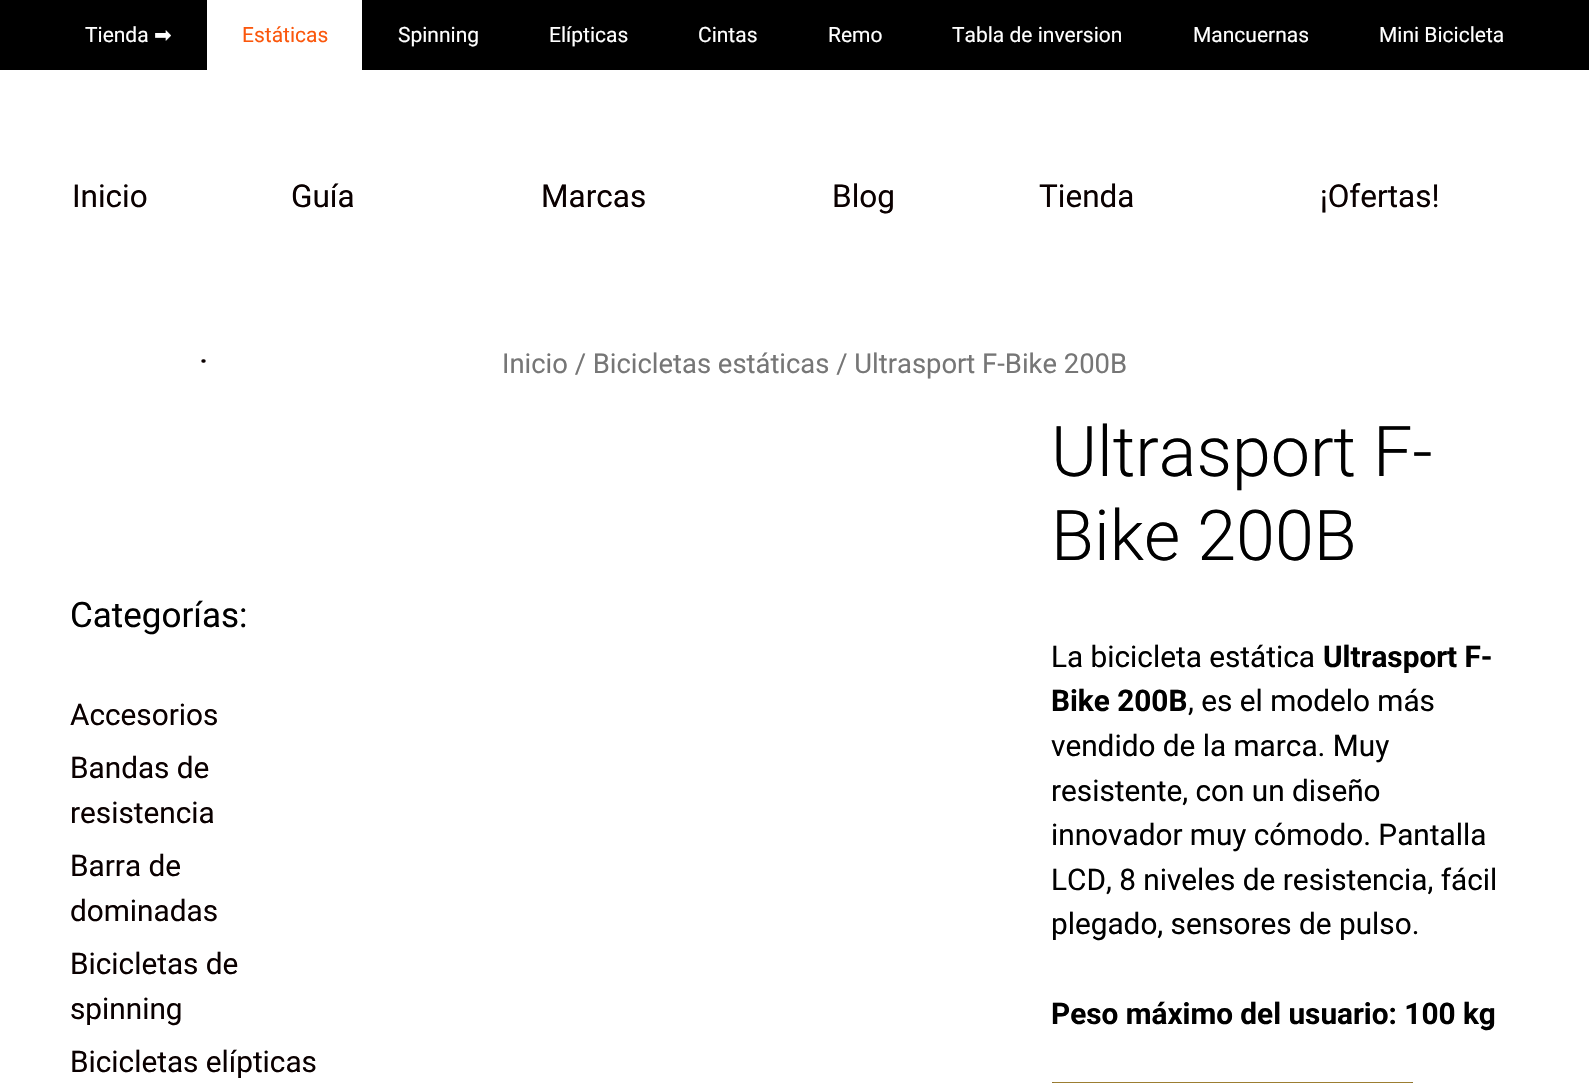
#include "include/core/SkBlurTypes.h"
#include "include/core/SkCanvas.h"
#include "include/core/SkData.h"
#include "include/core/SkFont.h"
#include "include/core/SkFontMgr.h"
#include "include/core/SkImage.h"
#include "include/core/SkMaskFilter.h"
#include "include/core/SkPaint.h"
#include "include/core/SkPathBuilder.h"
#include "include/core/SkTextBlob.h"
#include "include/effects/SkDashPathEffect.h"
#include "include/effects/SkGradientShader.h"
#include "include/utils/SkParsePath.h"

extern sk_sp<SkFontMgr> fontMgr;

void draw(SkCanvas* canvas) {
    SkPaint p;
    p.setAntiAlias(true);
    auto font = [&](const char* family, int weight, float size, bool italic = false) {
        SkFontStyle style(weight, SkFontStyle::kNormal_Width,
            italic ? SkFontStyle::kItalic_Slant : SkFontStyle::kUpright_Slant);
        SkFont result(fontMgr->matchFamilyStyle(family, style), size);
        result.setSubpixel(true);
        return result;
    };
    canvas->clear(0xFFFFFFFF);
    p.setColor(0xFF000000);
    canvas->drawRect(SkRect::MakeLTRB(0, 0, 1589, 70), p);
    auto font1 = font("Roboto", 400, 21);
    p.setColor(0xFFFFFFFF);
    canvas->drawString("Tienda", 85, 42, font1, p);
    auto font2 = font("DejaVu Sans", 400, 21);
    canvas->drawString("➡", 154, 42, font2, p);
    canvas->drawRect(SkRect::MakeLTRB(207, 0, 362, 70), p);
    p.setColor(0xFFFB570C);
    canvas->drawString("Estáticas", 242, 42, font1, p);
    p.setColor(0xFFFFFFFF);
    {
        const struct { const char* s; float x, y; } items[] = {
            {"Spinning", 398, 42},
            {"Elípticas", 549, 42},
            {"Cintas", 698, 42},
            {"Remo", 828, 42},
            {"Tabla de inversion", 952, 42},
            {"Mancuernas", 1193, 42},
            {"Mini Bicicleta", 1379, 42},
        };
        for (auto [s, x, y] : items) {
            canvas->drawString(s, x, y, font1, p);
        }
    }
    auto font3 = font("Roboto", 400, 31.5f);
    p.setColor(0xFF0A0000);
    {
        const struct { const char* s; float x, y; } items[] = {
            {"Inicio", 72, 207},
            {"Guía", 291, 207},
            {"Marcas", 541, 207},
            {"Blog", 832, 207},
            {"Tienda", 1039, 207},
            {"¡Ofertas!", 1320, 207},
        };
        for (auto [s, x, y] : items) {
            canvas->drawString(s, x, y, font3, p);
        }
    }
    p.setStyle(SkPaint::kStroke_Style);
    p.setStrokeWidth(3.4f);
    p.setStrokeCap(SkPaint::kRound_Cap);
    canvas->drawPath(SkPathBuilder().moveTo(203, 361).lineTo(204, 361).detach(), p);
    auto font4 = font("Roboto", 400, 35);
    p.setStyle(SkPaint::kFill_Style);
    p.setColor(0xFF000000);
    canvas->drawString("Categorías:", 70, 627, font4, p);
    auto font5 = font("Roboto", 400, 29.75f);
    p.setColor(0xFF0A0000);
    {
        const struct { const char* s; float x, y; } items[] = {
            {"Accesorios", 70, 725},
            {"Bandas de", 70, 778},
            {"resistencia", 70, 823},
            {"Barra de", 70, 876},
            {"dominadas", 70, 921},
            {"Bicicletas de", 70, 974},
            {"spinning", 70, 1019},
            {"Bicicletas elípticas", 70, 1072},
        };
        for (auto [s, x, y] : items) {
            canvas->drawString(s, x, y, font5, p);
        }
    }
    auto font6 = font("Roboto", 400, 27.4f);
    p.setColor(0xFF767676);
    canvas->drawString("Inicio / Bicicletas estáticas / Ultrasport F-Bike 200B", 502, 373, font6, p);
    auto font7 = font("Roboto", 300, 70);
    p.setColor(0xFF000000);
    canvas->drawString("Ultrasport F-", 1051, 476, font7, p);
    canvas->drawString("Bike 200B", 1051, 560, font7, p);
    canvas->drawString("La bicicleta estática", 1051, 667, font5, p);
    auto font8 = font("Roboto", 700, 29.75f);
    canvas->drawString("Ultrasport F-", 1323, 667, font8, p);
    canvas->drawString("Bike 200B", 1051, 711, font8, p);
    {
        const struct { const char* s; float x, y; } items[] = {
            {", es el modelo más", 1188, 711},
            {"vendido de la marca. Muy", 1051, 756},
            {"resistente, con un diseño", 1051, 801},
            {"innovador muy cómodo. Pantalla", 1051, 845},
            {"LCD, 8 niveles de resistencia, fácil", 1051, 890},
            {"plegado, sensores de pulso.", 1051, 934},
        };
        for (auto [s, x, y] : items) {
            canvas->drawString(s, x, y, font5, p);
        }
    }
    canvas->drawString("Peso máximo del usuario: 100 kg", 1051, 1024, font8, p);
    {
        const struct { float l, t, r, b; SkColor color; } items[] = {
            {1052, 1082, 1412, 1083, 0xFF9C7E31},
            {1411, 1082, 1413, 1083, 0xFF90742D},
            {1052, 1082, 1054, 1083, 0xFF90742D},
        };
        for (auto [l, t, r, b, color] : items) {
            p.setColor(color);
            canvas->drawRect(SkRect::MakeLTRB(l, t, r, b), p);
        }
    }
}
